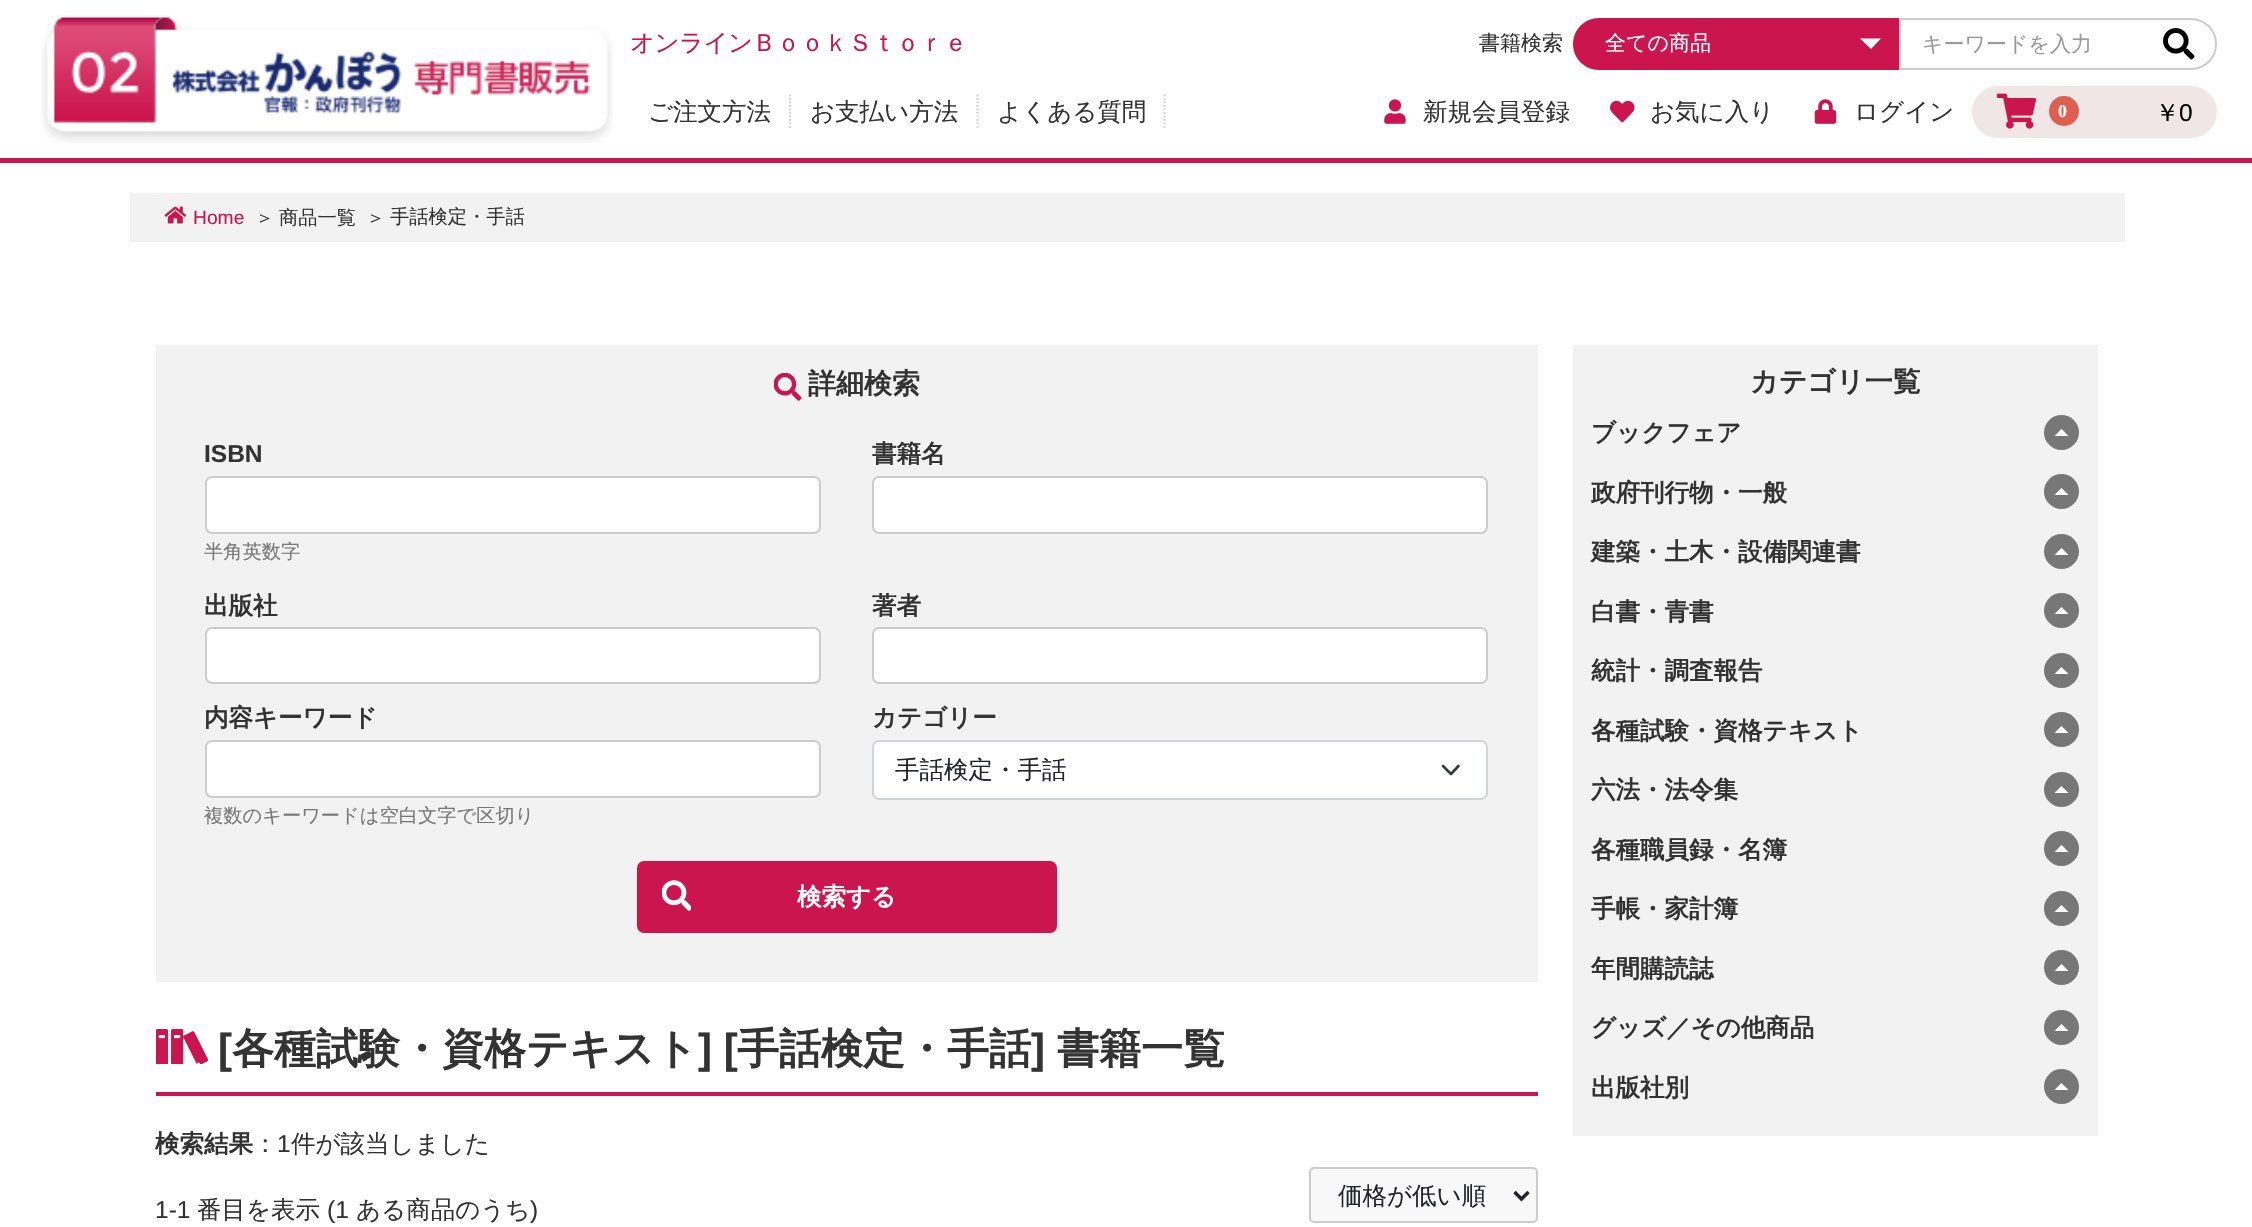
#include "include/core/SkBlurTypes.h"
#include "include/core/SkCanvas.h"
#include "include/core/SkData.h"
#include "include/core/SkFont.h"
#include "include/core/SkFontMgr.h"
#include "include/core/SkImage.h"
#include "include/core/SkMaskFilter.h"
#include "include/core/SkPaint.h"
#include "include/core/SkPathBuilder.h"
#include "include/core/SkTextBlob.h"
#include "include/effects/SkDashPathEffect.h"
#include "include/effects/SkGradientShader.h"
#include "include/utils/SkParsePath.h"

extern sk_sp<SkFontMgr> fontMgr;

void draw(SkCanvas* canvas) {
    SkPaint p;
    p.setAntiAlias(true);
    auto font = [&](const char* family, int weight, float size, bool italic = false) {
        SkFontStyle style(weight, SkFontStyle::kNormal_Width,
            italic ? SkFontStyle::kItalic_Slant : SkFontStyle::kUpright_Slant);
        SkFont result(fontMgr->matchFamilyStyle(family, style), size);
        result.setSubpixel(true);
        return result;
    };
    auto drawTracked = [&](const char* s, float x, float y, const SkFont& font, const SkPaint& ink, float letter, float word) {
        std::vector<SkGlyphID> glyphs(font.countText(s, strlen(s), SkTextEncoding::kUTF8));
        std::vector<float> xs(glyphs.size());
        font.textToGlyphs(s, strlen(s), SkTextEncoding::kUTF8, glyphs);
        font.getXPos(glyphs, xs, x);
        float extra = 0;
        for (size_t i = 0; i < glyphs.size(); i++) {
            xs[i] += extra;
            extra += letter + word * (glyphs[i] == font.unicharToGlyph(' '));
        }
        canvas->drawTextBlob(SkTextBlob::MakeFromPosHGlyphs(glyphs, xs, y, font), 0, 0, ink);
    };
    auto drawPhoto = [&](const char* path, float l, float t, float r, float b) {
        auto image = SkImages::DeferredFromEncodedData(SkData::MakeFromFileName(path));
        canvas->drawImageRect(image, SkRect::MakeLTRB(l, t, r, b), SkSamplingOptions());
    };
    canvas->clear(0xFFFFFFFF);
    p.setColor(0xFFCB154E);
    canvas->drawRect(SkRect::MakeLTRB(0, 158, 2252, 163), p);
    drawPhoto("media/1.png", 41, 15, 613, 143);
    auto font1 = font("WenQuanYi Zen Hei", 500, 21);
    p.setColor(0xFF333333);
    canvas->drawString("書籍検索", 1479, 50, font1, p);
    p.setColor(0xFFCB154E);
    canvas->drawPath(SkPathBuilder().moveTo(1599, 18).lineTo(1899, 18).lineTo(1899, 70).lineTo(1599, 70).cubicTo(1584.5f, 70, 1573, 58.5f, 1573, 44).cubicTo(1573, 29.5f, 1584.5f, 18, 1599, 18).close().detach(), p);
    p.setColor(0xFFFFFFFF);
    canvas->drawString("全ての商品", 1605, 50, font1, p);
    canvas->drawPath(SkPathBuilder().moveTo(1860, 38.5f).lineTo(1881, 38.5f).lineTo(1871, 49).close().detach(), p);
    p.setStyle(SkPaint::kStroke_Style);
    p.setStrokeWidth(2);
    p.setColor(0xFFCCCCCC);
    canvas->drawPath(SkPathBuilder().moveTo(1900, 19).lineTo(2191, 19).cubicTo(2205, 19, 2216, 30, 2216, 44).cubicTo(2216, 58, 2205, 69, 2191, 69).lineTo(1900, 69).close().detach(), p);
    p.setStyle(SkPaint::kFill_Style);
    p.setColor(0xFF999999);
    canvas->drawString("キーワードを入力", 1922, 51, font1, p);
    drawPhoto("media/2.png", 2163, 28, 2195, 60);
    p.setStyle(SkPaint::kStroke_Style);
    p.setStrokeWidth(1.8f);
    p.setColor(0xFFCCCCCC);
    p.setPathEffect(SkDashPathEffect::Make({{1.75f, 1.75f}}, 0));
    canvas->drawPath(SkPathBuilder().moveTo(790, 94.5f).lineTo(790, 129.5f).detach(), p);
    p.setPathEffect(nullptr);
    auto font2 = font("WenQuanYi Zen Hei", 500, 24.5f);
    p.setStyle(SkPaint::kFill_Style);
    p.setColor(0xFF333333);
    canvas->drawString("ご注文方法", 648, 120, font2, p);
    p.setStyle(SkPaint::kStroke_Style);
    p.setColor(0xFFCCCCCC);
    p.setPathEffect(SkDashPathEffect::Make({{1.75f, 1.75f}}, 0));
    canvas->drawPath(SkPathBuilder().moveTo(977.5f, 94.5f).lineTo(977.5f, 129.5f).detach(), p);
    p.setPathEffect(nullptr);
    p.setStyle(SkPaint::kFill_Style);
    p.setColor(0xFF333333);
    canvas->drawString("お支払い方法", 810, 120, font2, p);
    p.setStyle(SkPaint::kStroke_Style);
    p.setColor(0xFFCCCCCC);
    p.setPathEffect(SkDashPathEffect::Make({{1.75f, 1.75f}}, 0));
    canvas->drawPath(SkPathBuilder().moveTo(1164.5f, 94.5f).lineTo(1164.5f, 129.5f).detach(), p);
    p.setPathEffect(nullptr);
    p.setStyle(SkPaint::kFill_Style);
    p.setColor(0xFF333333);
    canvas->drawString("よくある質問", 997, 120, font2, p);
    drawPhoto("media/3.png", 1384, 99, 1406, 124);
    canvas->drawString("新規会員登録", 1423, 120, font2, p);
    drawPhoto("media/4.png", 1610, 100, 1635, 123);
    canvas->drawString("お気に入り", 1650, 120, font2, p);
    drawPhoto("media/5.png", 1814, 99, 1837, 124);
    canvas->drawString("ログイン", 1854, 120, font2, p);
    p.setColor(0xFFF0E6E6);
    canvas->drawRoundRect(SkRect::MakeLTRB(1972, 86, 2217, 138), 26, 26, p);
    drawPhoto("media/6.png", 1996, 93, 2037, 129);
    p.setColor(0xFFDE5E51);
    canvas->drawCircle(2064, 111, 15, p);
    auto font3 = font("Liberation Serif", 700, 18);
    p.setColor(0xFFFFFFFF);
    canvas->drawString("0", 2058, 117, font3, p);
    p.setColor(0xFF000000);
    canvas->drawString("￥", 2155, 121, font2, p);
    auto font4 = font("Liberation Sans", 400, 24.5f);
    canvas->drawString("0", 2179, 121, font4, p);
    p.setColor(0xFFCB154E);
    drawTracked("オンラインＢｏｏｋＳｔｏｒｅ", 630, 51, font2, p, -0.6f, 0);
    p.setColor(0xFFF2F2F2);
    canvas->drawRect(SkRect::MakeLTRB(130, 193, 2125, 242), p);
    drawPhoto("media/7.png", 164, 206, 187, 224);
    auto font5 = font("Liberation Sans", 400, 19.25f);
    p.setColor(0xFFCB154E);
    canvas->drawString("Home", 193, 224, font5, p);
    auto font6 = font("WenQuanYi Zen Hei", 500, 19.25f);
    p.setColor(0xFF333333);
    {
        const struct { const char* s; float x, y; } items[] = {
            {"＞", 255, 224},
            {"商品一覧", 279, 224},
            {"＞", 366, 224},
            {"手話検定・手話", 390, 223},
        };
        for (auto [s, x, y] : items) {
            canvas->drawString(s, x, y, font6, p);
        }
    }
    p.setColor(0xFFF2F2F2);
    canvas->drawRect(SkRect::MakeLTRB(156, 345, 1538, 982), p);
    drawPhoto("media/8.png", 774, 373, 802, 401);
    auto font7 = font("WenQuanYi Zen Hei", 700, 28);
    p.setColor(0xFF333333);
    canvas->drawString("詳細検索", 808, 393, font7, p);
    auto font8 = font("Liberation Sans", 700, 24.5f);
    canvas->drawString("ISBN", 204, 462, font8, p);
    p.setColor(0xFFFFFFFF);
    canvas->drawRoundRect(SkRect::MakeLTRB(206, 477, 820, 533), 6, 6, p);
    p.setStyle(SkPaint::kStroke_Style);
    p.setStrokeWidth(2);
    p.setColor(0xFFCCCCCC);
    canvas->drawRoundRect(SkRect::MakeLTRB(206, 477, 820, 533), 6, 6, p);
    p.setStyle(SkPaint::kFill_Style);
    p.setColor(0xFF777777);
    canvas->drawString("半角英数字", 204, 558, font6, p);
    auto font9 = font("WenQuanYi Zen Hei", 700, 24.5f);
    p.setColor(0xFF333333);
    canvas->drawString("書籍名", 872, 462, font9, p);
    p.setColor(0xFFFFFFFF);
    canvas->drawRoundRect(SkRect::MakeLTRB(873, 477, 1487, 533), 6, 6, p);
    p.setStyle(SkPaint::kStroke_Style);
    p.setColor(0xFFCCCCCC);
    canvas->drawRoundRect(SkRect::MakeLTRB(873, 477, 1487, 533), 6, 6, p);
    p.setStyle(SkPaint::kFill_Style);
    p.setColor(0xFF333333);
    canvas->drawString("出版社", 204, 614, font9, p);
    p.setColor(0xFFFFFFFF);
    canvas->drawRoundRect(SkRect::MakeLTRB(206, 628, 820, 683), 6, 6, p);
    p.setStyle(SkPaint::kStroke_Style);
    p.setColor(0xFFCCCCCC);
    canvas->drawRoundRect(SkRect::MakeLTRB(206, 628, 820, 683), 6, 6, p);
    p.setStyle(SkPaint::kFill_Style);
    p.setColor(0xFF333333);
    canvas->drawString("著者", 872, 614, font9, p);
    p.setColor(0xFFFFFFFF);
    canvas->drawRoundRect(SkRect::MakeLTRB(873, 628, 1487, 683), 6, 6, p);
    p.setStyle(SkPaint::kStroke_Style);
    p.setColor(0xFFCCCCCC);
    canvas->drawRoundRect(SkRect::MakeLTRB(873, 628, 1487, 683), 6, 6, p);
    p.setStyle(SkPaint::kFill_Style);
    p.setColor(0xFF333333);
    canvas->drawString("内容キーワード", 204, 726, font9, p);
    p.setColor(0xFFFFFFFF);
    canvas->drawRoundRect(SkRect::MakeLTRB(206, 741, 820, 797), 6, 6, p);
    p.setStyle(SkPaint::kStroke_Style);
    p.setColor(0xFFCCCCCC);
    canvas->drawRoundRect(SkRect::MakeLTRB(206, 741, 820, 797), 6, 6, p);
    p.setStyle(SkPaint::kFill_Style);
    p.setColor(0xFF777777);
    canvas->drawString("複数のキーワードは空白文字で区切り", 204, 822, font6, p);
    p.setColor(0xFF333333);
    canvas->drawString("カテゴリー", 872, 726, font9, p);
    p.setColor(0xFFFFFFFF);
    canvas->drawRoundRect(SkRect::MakeLTRB(872, 740, 1488, 800), 7, 7, p);
    p.setStyle(SkPaint::kStroke_Style);
    p.setStrokeWidth(2.6f);
    p.setStrokeCap(SkPaint::kRound_Cap);
    p.setStrokeJoin(SkPaint::kRound_Join);
    p.setColor(0xFF343A40);
    canvas->drawPath(SkPathBuilder().moveTo(1443, 766).lineTo(1451, 774).lineTo(1458.5f, 766).detach(), p);
    p.setStrokeWidth(2);
    p.setStrokeCap(SkPaint::kButt_Cap);
    p.setStrokeJoin(SkPaint::kMiter_Join);
    p.setColor(0xFFCED4DA);
    canvas->drawRoundRect(SkRect::MakeLTRB(873, 741, 1487, 799), 6, 6, p);
    p.setStyle(SkPaint::kFill_Style);
    p.setColor(0xFF212529);
    canvas->drawString("手話検定・手話", 895, 778, font2, p);
    p.setColor(0xFFCB154E);
    canvas->drawRoundRect(SkRect::MakeLTRB(637, 861, 1057, 933), 7, 7, p);
    drawPhoto("media/9.png", 662, 880, 691, 911);
    p.setColor(0xFFFFFFFF);
    canvas->drawString("検索する", 797, 905, font9, p);
    p.setColor(0xFFCB154E);
    canvas->drawRect(SkRect::MakeLTRB(156, 1092, 1538, 1096), p);
    drawPhoto("media/10.png", 156, 1029, 208, 1064);
    auto font10 = font("Liberation Sans", 700, 42);
    p.setColor(0xFF333333);
    canvas->drawString("[", 218, 1063, font10, p);
    auto font11 = font("WenQuanYi Zen Hei", 700, 42);
    canvas->drawString("各種試験・資格テキスト", 232, 1063, font11, p);
    canvas->drawString("] [", 698, 1063, font10, p);
    canvas->drawString("手話検定・手話", 737, 1063, font11, p);
    canvas->drawString("]", 1031, 1063, font10, p);
    canvas->drawString("書籍一覧", 1057, 1063, font11, p);
    canvas->drawString("検索結果", 155, 1152, font9, p);
    canvas->drawString("：", 253, 1152, font2, p);
    canvas->drawString("1", 277, 1152, font4, p);
    canvas->drawString("件が該当しました", 291, 1152, font2, p);
    canvas->drawString("1-1", 155, 1218, font4, p);
    canvas->drawString("番目を表示", 197, 1218, font2, p);
    canvas->drawString("(1", 327, 1218, font4, p);
    canvas->drawString("ある商品のうち", 356, 1218, font2, p);
    canvas->drawString(")", 530, 1218, font4, p);
    p.setColor(0xFFF8F8F8);
    canvas->drawRoundRect(SkRect::MakeLTRB(1310, 1168, 1537, 1222), 4, 4, p);
    p.setStyle(SkPaint::kStroke_Style);
    p.setColor(0xFFCCCCCC);
    canvas->drawRoundRect(SkRect::MakeLTRB(1310, 1168, 1537, 1222), 4, 4, p);
    p.setStrokeWidth(3.5f);
    p.setColor(0xFF212529);
    canvas->drawPath(SkPathBuilder().moveTo(1514.5f, 1192).lineTo(1521.5f, 1199).lineTo(1528.5f, 1192).detach(), p);
    p.setStyle(SkPaint::kFill_Style);
    canvas->drawString("価格が低い順", 1338, 1204, font2, p);
    p.setColor(0xFFF2F2F2);
    canvas->drawRect(SkRect::MakeLTRB(1573, 345, 2098, 1136), p);
    p.setColor(0xFF333333);
    canvas->drawString("カテゴリ一覧", 1750, 391, font7, p);
    canvas->drawString("ブックフェア", 1591, 441, font9, p);
    p.setColor(0xFF777777);
    canvas->drawCircle(2061.5f, 432.5f, 17.5f, p);
    p.setColor(0xFFFFFFFF);
    canvas->drawPath(SkPathBuilder().moveTo(2068.5f, 436).lineTo(2054.5f, 436).lineTo(2061.5f, 429).close().detach(), p);
    p.setColor(0xFF333333);
    canvas->drawString("政府刊行物・一般", 1591, 501, font9, p);
    p.setColor(0xFF777777);
    canvas->drawCircle(2061.5f, 491.5f, 17.5f, p);
    p.setColor(0xFFFFFFFF);
    canvas->drawPath(SkPathBuilder().moveTo(2068.5f, 495).lineTo(2054.5f, 495).lineTo(2061.5f, 488).close().detach(), p);
    p.setColor(0xFF333333);
    canvas->drawString("建築・土木・設備関連書", 1591, 560, font9, p);
    p.setColor(0xFF777777);
    canvas->drawCircle(2061.5f, 551.5f, 17.5f, p);
    p.setColor(0xFFFFFFFF);
    canvas->drawPath(SkPathBuilder().moveTo(2068.5f, 555).lineTo(2054.5f, 555).lineTo(2061.5f, 548).close().detach(), p);
    p.setColor(0xFF333333);
    canvas->drawString("白書・青書", 1591, 620, font9, p);
    p.setColor(0xFF777777);
    canvas->drawCircle(2061.5f, 610.5f, 17.5f, p);
    p.setColor(0xFFFFFFFF);
    canvas->drawPath(SkPathBuilder().moveTo(2068.5f, 614).lineTo(2054.5f, 614).lineTo(2061.5f, 607).close().detach(), p);
    p.setColor(0xFF333333);
    canvas->drawString("統計・調査報告", 1591, 679, font9, p);
    p.setColor(0xFF777777);
    canvas->drawCircle(2061.5f, 670.5f, 17.5f, p);
    p.setColor(0xFFFFFFFF);
    canvas->drawPath(SkPathBuilder().moveTo(2068.5f, 674).lineTo(2054.5f, 674).lineTo(2061.5f, 667).close().detach(), p);
    p.setColor(0xFF333333);
    canvas->drawString("各種試験・資格テキスト", 1591, 739, font9, p);
    p.setColor(0xFF777777);
    canvas->drawCircle(2061.5f, 729.5f, 17.5f, p);
    p.setColor(0xFFFFFFFF);
    canvas->drawPath(SkPathBuilder().moveTo(2068.5f, 733).lineTo(2054.5f, 733).lineTo(2061.5f, 726).close().detach(), p);
    p.setColor(0xFF333333);
    canvas->drawString("六法・法令集", 1591, 798, font9, p);
    p.setColor(0xFF777777);
    canvas->drawCircle(2061.5f, 789.5f, 17.5f, p);
    p.setColor(0xFFFFFFFF);
    canvas->drawPath(SkPathBuilder().moveTo(2068.5f, 793).lineTo(2054.5f, 793).lineTo(2061.5f, 786).close().detach(), p);
    p.setColor(0xFF333333);
    canvas->drawString("各種職員録・名簿", 1591, 858, font9, p);
    p.setColor(0xFF777777);
    canvas->drawCircle(2061.5f, 848.5f, 17.5f, p);
    p.setColor(0xFFFFFFFF);
    canvas->drawPath(SkPathBuilder().moveTo(2068.5f, 852).lineTo(2054.5f, 852).lineTo(2061.5f, 845).close().detach(), p);
    p.setColor(0xFF333333);
    canvas->drawString("手帳・家計簿", 1591, 917, font9, p);
    p.setColor(0xFF777777);
    canvas->drawCircle(2061.5f, 908.5f, 17.5f, p);
    p.setColor(0xFFFFFFFF);
    canvas->drawPath(SkPathBuilder().moveTo(2068.5f, 912).lineTo(2054.5f, 912).lineTo(2061.5f, 905).close().detach(), p);
    p.setColor(0xFF333333);
    canvas->drawString("年間購読誌", 1591, 977, font9, p);
    p.setColor(0xFF777777);
    canvas->drawCircle(2061.5f, 967.5f, 17.5f, p);
    p.setColor(0xFFFFFFFF);
    canvas->drawPath(SkPathBuilder().moveTo(2068.5f, 971).lineTo(2054.5f, 971).lineTo(2061.5f, 964).close().detach(), p);
    p.setColor(0xFF333333);
    canvas->drawString("グッズ／その他商品", 1591, 1036, font9, p);
    p.setColor(0xFF777777);
    canvas->drawCircle(2061.5f, 1027.5f, 17.5f, p);
    p.setColor(0xFFFFFFFF);
    canvas->drawPath(SkPathBuilder().moveTo(2068.5f, 1031).lineTo(2054.5f, 1031).lineTo(2061.5f, 1024).close().detach(), p);
    p.setColor(0xFF333333);
    canvas->drawString("出版社別", 1591, 1096, font9, p);
    p.setColor(0xFF777777);
    canvas->drawCircle(2061.5f, 1086.5f, 17.5f, p);
    p.setColor(0xFFFFFFFF);
    canvas->drawPath(SkPathBuilder().moveTo(2068.5f, 1090).lineTo(2054.5f, 1090).lineTo(2061.5f, 1083).close().detach(), p);
}
